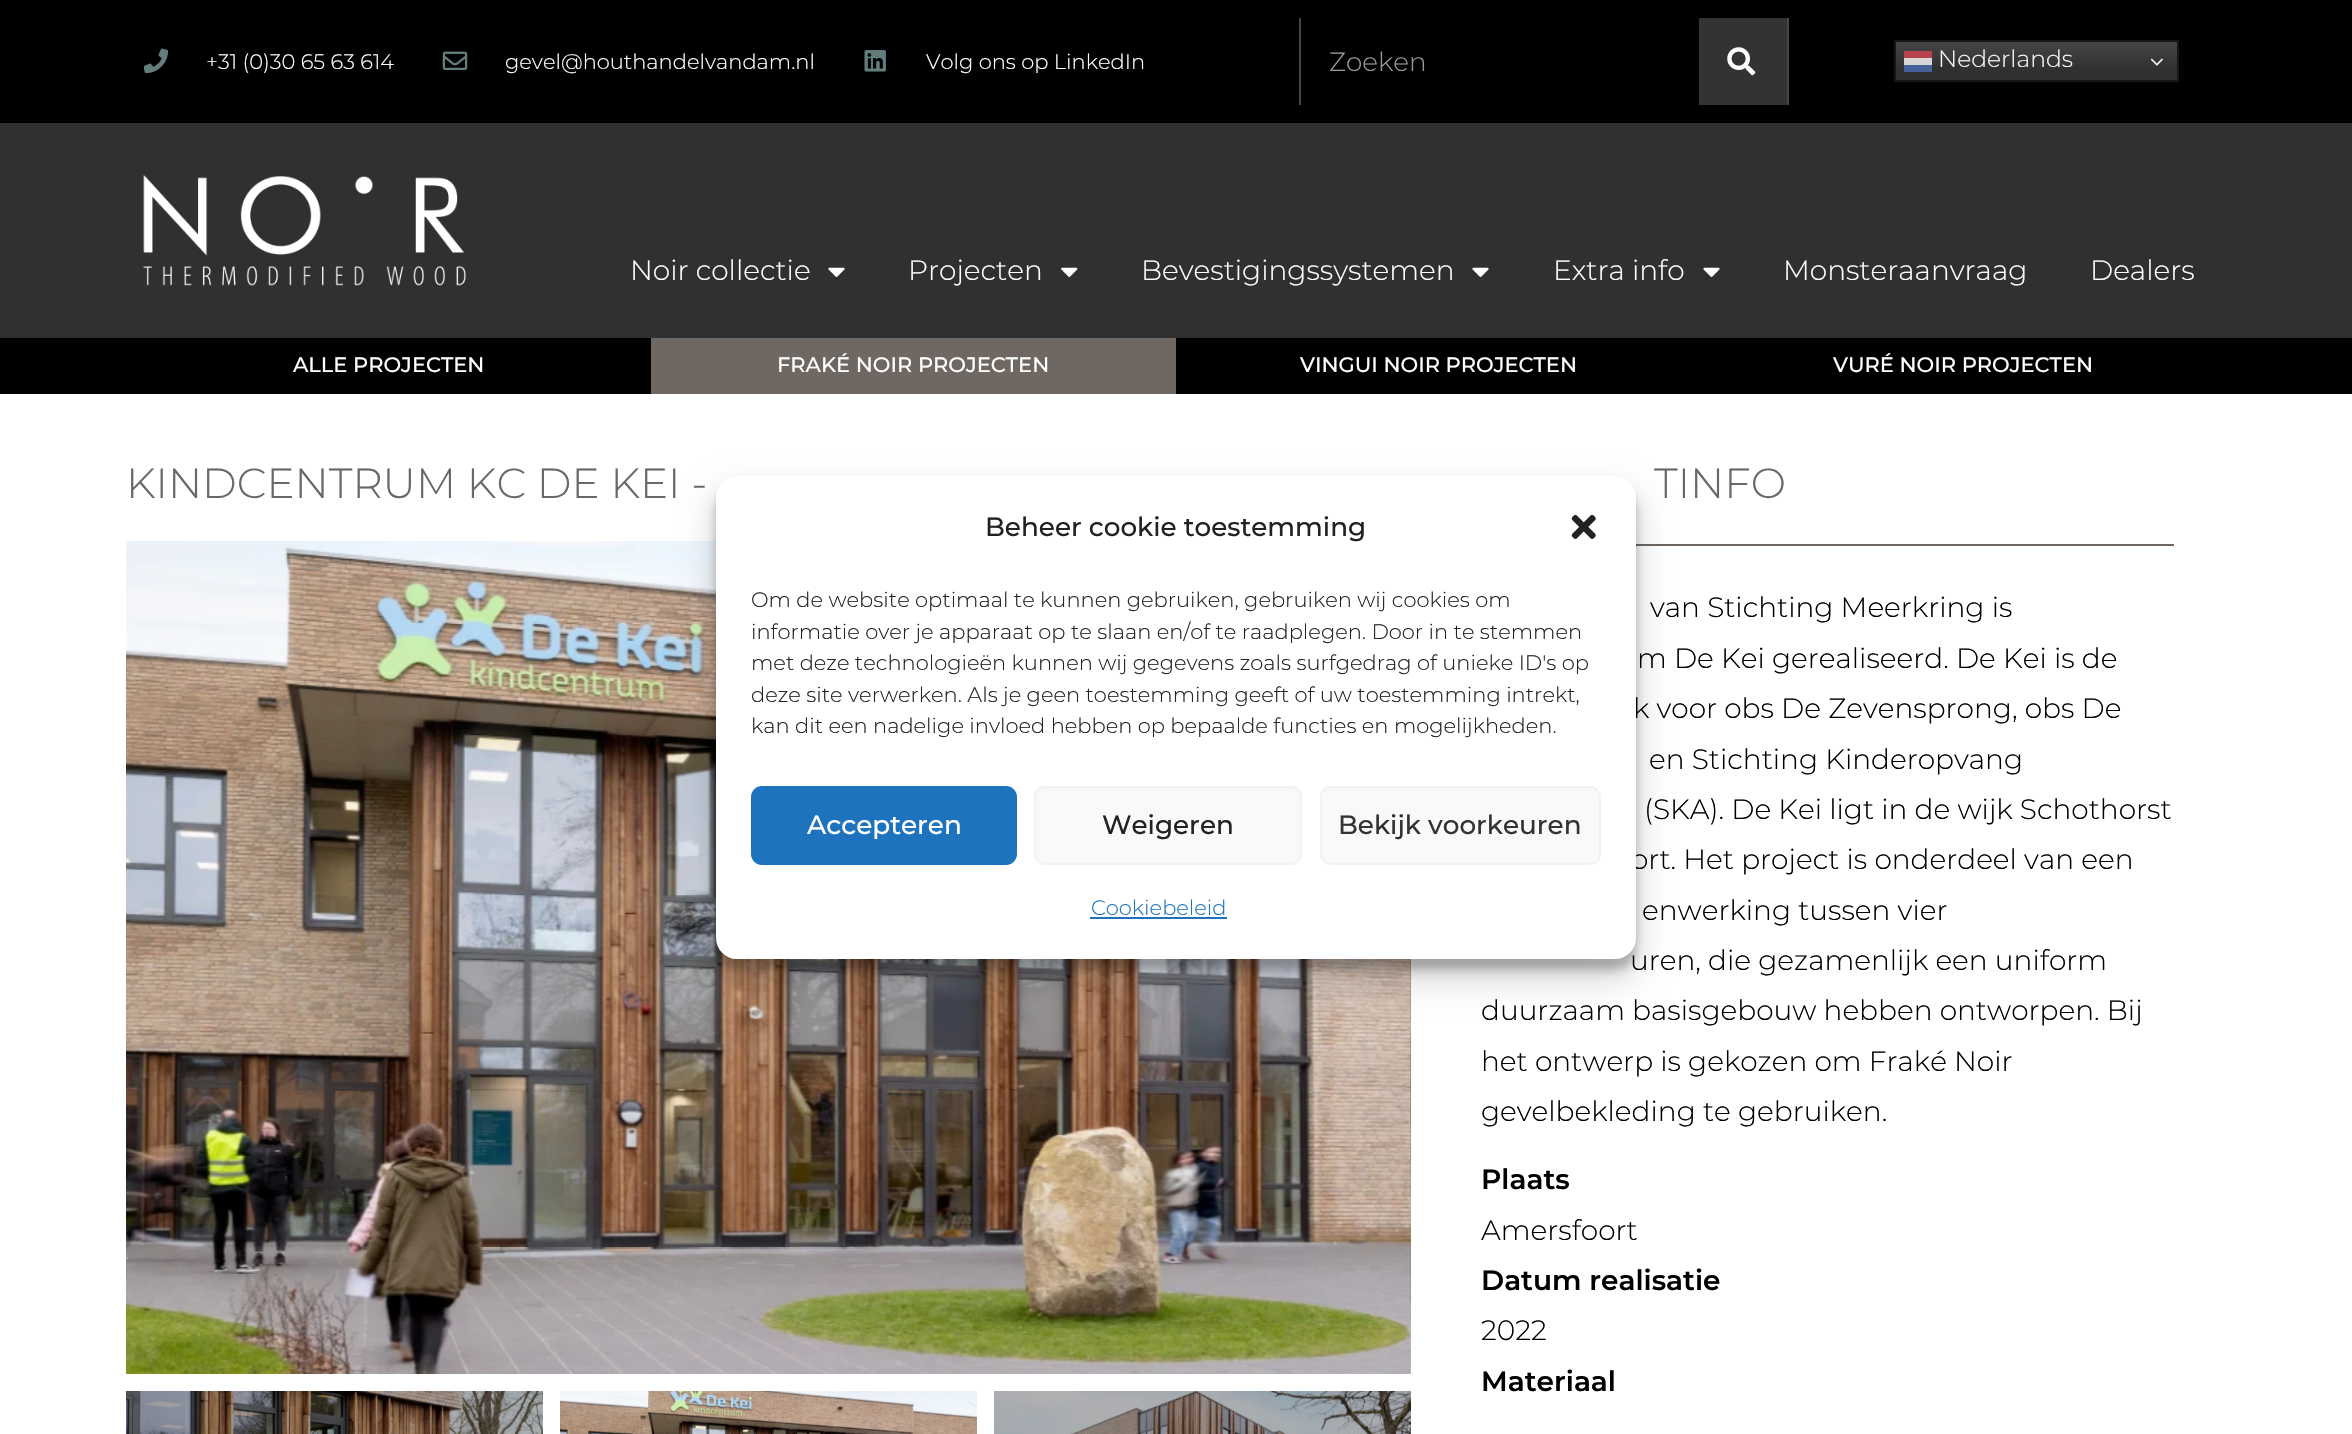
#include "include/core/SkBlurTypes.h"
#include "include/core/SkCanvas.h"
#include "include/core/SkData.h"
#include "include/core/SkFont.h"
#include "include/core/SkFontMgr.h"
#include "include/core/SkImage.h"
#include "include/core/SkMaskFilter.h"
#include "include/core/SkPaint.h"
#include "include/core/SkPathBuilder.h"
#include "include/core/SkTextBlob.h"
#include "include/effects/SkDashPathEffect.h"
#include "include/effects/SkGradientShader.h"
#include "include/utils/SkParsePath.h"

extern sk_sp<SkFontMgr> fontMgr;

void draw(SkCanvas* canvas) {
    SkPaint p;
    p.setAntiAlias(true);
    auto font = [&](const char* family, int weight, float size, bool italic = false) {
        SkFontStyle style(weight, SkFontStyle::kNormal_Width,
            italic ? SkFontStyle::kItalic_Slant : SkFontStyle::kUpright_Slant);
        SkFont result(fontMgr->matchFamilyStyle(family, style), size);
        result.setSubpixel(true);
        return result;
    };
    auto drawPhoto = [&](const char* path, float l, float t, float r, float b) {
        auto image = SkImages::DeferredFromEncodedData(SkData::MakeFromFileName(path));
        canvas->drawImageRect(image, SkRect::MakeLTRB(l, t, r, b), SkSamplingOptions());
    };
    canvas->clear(0xFFFFFFFF);
    p.setColor(0xFF303030);
    canvas->drawRect(SkRect::MakeLTRB(0, 123, 2352, 338), p);
    p.setColor(0xFF000000);
    canvas->drawRect(SkRect::MakeLTRB(0, 0, 2352, 123), p);
    drawPhoto("media/1.png", 144, 48, 168, 73);
    auto font1 = font("Montserrat", 300, 21);
    p.setColor(0xFFFFFFFF);
    canvas->drawString("+31 (0)30 65 63 614", 206, 69, font1, p);
    drawPhoto("media/2.png", 442, 51, 468, 70);
    canvas->drawString("gevel@houthandelvandam.nl", 505, 69, font1, p);
    drawPhoto("media/3.png", 864, 50, 886, 72);
    canvas->drawString("Volg ons op LinkedIn", 926, 69, font1, p);
    p.setColor(0xFF454545);
    canvas->drawRect(SkRect::MakeLTRB(1787, 18, 1789, 105), p);
    canvas->drawRect(SkRect::MakeLTRB(1299, 18, 1301, 105), p);
    auto font2 = font("Montserrat", 300, 26.25f);
    p.setColor(0xFF999999);
    canvas->drawString("Zoeken", 1329, 71, font2, p);
    p.setColor(0xFF333333);
    canvas->drawRect(SkRect::MakeLTRB(1699, 18, 1787, 105), p);
    drawPhoto("media/4.png", 1727, 47, 1756, 76);
    {
        const SkColor colors[] = {0xFF474747, 0xFF303030};
        const float stops[] = {0, 0.7f};
        const SkPoint ends[] = {{2036, 40}, {2036, 82}};
        p.setShader(SkGradientShader::MakeLinear(ends, colors, stops, 2, SkTileMode::kClamp));
        p.setAlpha(255);
    }
    canvas->drawRect(SkRect::MakeLTRB(1896, 42, 2177, 80), p);
    {
        const SkColor colors[] = {0xFFDADADA, 0xFFD6D6D6};
        const float stops[] = {0, 0.7f};
        const SkPoint ends[] = {{2036, 40}, {2036, 82}};
        p.setShader(SkGradientShader::MakeLinear(ends, colors, stops, 2, SkTileMode::kClamp));
        p.setAlpha(255);
    }
    canvas->drawRect(SkRect::MakeLTRB(1904, 58, 1932, 65), p);
    p.setStyle(SkPaint::kStroke_Style);
    p.setStrokeWidth(2);
    p.setShader(nullptr);
    p.setColor(0xFF161616);
    canvas->drawRect(SkRect::MakeLTRB(1895, 41, 2178, 81), p);
    p.setStyle(SkPaint::kFill_Style);
    p.setColor(0xFFB6424B);
    canvas->drawRect(SkRect::MakeLTRB(1904, 51, 1932, 58), p);
    auto font3 = font("Montserrat", 300, 23.5f);
    p.setColor(0xFFF7F7F7);
    canvas->drawString("Nederlands", 1938, 67, font3, p);
    drawPhoto("media/5.png", 2151, 58, 2163, 66);
    p.setColor(0xFF45639A);
    canvas->drawRect(SkRect::MakeLTRB(1904, 65, 1932, 72), p);
    drawPhoto("media/6.png", 143, 175, 466, 286);
    auto font4 = font("Montserrat", 300, 28);
    p.setColor(0xFFFFFFFF);
    canvas->drawString("Noir collectie", 630, 280, font4, p);
    drawPhoto("media/7.png", 828, 267, 845, 277);
    canvas->drawString("Projecten", 908, 280, font4, p);
    drawPhoto("media/8.png", 1061, 267, 1078, 277);
    canvas->drawString("Bevestigingssystemen", 1141, 280, font4, p);
    drawPhoto("media/7.png", 1472, 267, 1489, 277);
    canvas->drawString("Extra info", 1553, 280, font4, p);
    drawPhoto("media/7.png", 1703, 267, 1720, 277);
    canvas->drawString("Monsteraanvraag", 1783, 280, font4, p);
    canvas->drawString("Dealers", 2090, 280, font4, p);
    p.setColor(0xFF000000);
    canvas->drawRect(SkRect::MakeLTRB(0, 338, 2352, 394), p);
    auto font5 = font("Montserrat", 500, 21);
    p.setColor(0xFFFFFFFF);
    canvas->drawString("ALLE PROJECTEN", 293, 372, font5, p);
    p.setColor(0xFF6F6761);
    canvas->drawRect(SkRect::MakeLTRB(651, 338, 1176, 394), p);
    p.setColor(0xFFFFFFFF);
    {
        const struct { const char* s; float x, y; } items[] = {
            {"FRAKÉ NOIR PROJECTEN", 777, 372},
            {"VINGUI NOIR PROJECTEN", 1300, 372},
            {"VURÉ NOIR PROJECTEN", 1833, 372},
        };
        for (auto [s, x, y] : items) {
            canvas->drawString(s, x, y, font5, p);
        }
    }
    auto font6 = font("Montserrat", 300, 42);
    p.setColor(0xFF686868);
    canvas->drawString("KINDCENTRUM KC DE KEI -", 126, 498, font6, p);
    drawPhoto("media/10.png", 1410, 959, 1411, 1374);
    drawPhoto("media/11.png", 1410, 959, 1411, 1374);
    drawPhoto("media/12.png", 1410, 959, 1411, 1374);
    drawPhoto("media/9.png", 126, 541, 1411, 1374);
    drawPhoto("media/13.png", 126, 1391, 543, 1434);
    drawPhoto("media/14.png", 560, 1391, 977, 1434);
    drawPhoto("media/15.png", 994, 1391, 1411, 1434);
    canvas->drawString("TINFO", 1654, 498, font6, p);
    p.setColor(0xFF6F6761);
    canvas->drawRect(SkRect::MakeLTRB(1636, 544, 2174, 546), p);
    p.setColor(0xFF000000);
    {
        const struct { const char* s; float x, y; } items[] = {
            {"van Stichting Meerkring is", 1650, 617},
            {"m De Kei gerealiseerd. De Kei is de", 1637, 668},
            {"k voor obs De Zevensprong, obs De", 1633, 718},
            {"en Stichting Kinderopvang", 1649, 769},
            {"(SKA). De Kei ligt in de wijk Schothorst", 1644, 819},
            {"ort. Het project is onderdeel van een", 1631, 869},
            {"enwerking tussen vier", 1642, 920},
            {"uren, die gezamenlijk een uniform", 1630, 970},
            {"duurzaam basisgebouw hebben ontworpen. Bij", 1481, 1020},
            {"het ontwerp is gekozen om Fraké Noir", 1481, 1071},
            {"gevelbekleding te gebruiken.", 1481, 1121},
        };
        for (auto [s, x, y] : items) {
            canvas->drawString(s, x, y, font4, p);
        }
    }
    auto font7 = font("Montserrat", 600, 28);
    canvas->drawString("Plaats", 1481, 1189, font7, p);
    canvas->drawString("Amersfoort", 1481, 1240, font4, p);
    canvas->drawString("Datum realisatie", 1481, 1290, font7, p);
    canvas->drawString("2022", 1481, 1340, font4, p);
    canvas->drawString("Materiaal", 1481, 1391, font7, p);
    p.setColor(0x3B000000);
    p.setMaskFilter(SkMaskFilter::MakeBlur(kNormal_SkBlurStyle, 5));
    canvas->drawRoundRect(SkRect::MakeLTRB(716, 487, 1636, 970), 21, 21, p);
    p.setMaskFilter(nullptr);
    p.setColor(0x30000000);
    p.setMaskFilter(SkMaskFilter::MakeBlur(kNormal_SkBlurStyle, 17.5f));
    canvas->drawRoundRect(SkRect::MakeLTRB(716, 494, 1636, 977), 21, 21, p);
    p.setMaskFilter(nullptr);
    p.setColor(0xFFFFFFFF);
    canvas->drawRoundRect(SkRect::MakeLTRB(716, 476, 1636, 959), 21, 21, p);
    auto font8 = font("Montserrat", 500, 26.25f);
    p.setColor(0xFF222222);
    canvas->drawString("Beheer cookie toestemming", 985, 536, font8, p);
    drawPhoto("media/16.png", 1571, 514, 1596, 539);
    {
        const struct { const char* s; float x, y; } items[] = {
            {"Om de website optimaal te kunnen gebruiken, gebruiken wij cookies om", 751, 607},
            {"informatie over je apparaat op te slaan en/of te raadplegen. Door in te stemmen", 751, 639},
            {"met deze technologieën kunnen wij gegevens zoals surfgedrag of unieke ID's op", 751, 670},
            {"deze site verwerken. Als je geen toestemming geeft of uw toestemming intrekt,", 751, 702},
            {"kan dit een nadelige invloed hebben op bepaalde functies en mogelijkheden.", 751, 733},
        };
        for (auto [s, x, y] : items) {
            canvas->drawString(s, x, y, font1, p);
        }
    }
    p.setColor(0xFF1E73BE);
    canvas->drawRoundRect(SkRect::MakeLTRB(752, 787, 1016, 864), 10, 10, p);
    p.setStyle(SkPaint::kStroke_Style);
    canvas->drawRoundRect(SkRect::MakeLTRB(752, 787, 1016, 864), 10, 10, p);
    p.setStyle(SkPaint::kFill_Style);
    p.setColor(0xFFFFFFFF);
    canvas->drawString("Accepteren", 807, 834, font8, p);
    p.setColor(0xFFF9F9F9);
    canvas->drawRoundRect(SkRect::MakeLTRB(1035, 787, 1301, 864), 10, 10, p);
    p.setStyle(SkPaint::kStroke_Style);
    p.setColor(0xFFF2F2F2);
    canvas->drawRoundRect(SkRect::MakeLTRB(1035, 787, 1301, 864), 10, 10, p);
    p.setStyle(SkPaint::kFill_Style);
    p.setColor(0xFF222222);
    canvas->drawString("Weigeren", 1102, 834, font8, p);
    p.setColor(0xFFF9F9F9);
    canvas->drawRoundRect(SkRect::MakeLTRB(1321, 787, 1600, 864), 10, 10, p);
    p.setStyle(SkPaint::kStroke_Style);
    p.setColor(0xFFF2F2F2);
    canvas->drawRoundRect(SkRect::MakeLTRB(1321, 787, 1600, 864), 10, 10, p);
    p.setStyle(SkPaint::kFill_Style);
    p.setColor(0xFF333333);
    canvas->drawString("Bekijk voorkeuren", 1338, 834, font8, p);
    p.setColor(0xFF1E73BE);
    canvas->drawString("Cookiebeleid", 1091, 915, font1, p);
    canvas->drawRect(SkRect::MakeLTRB(1090, 917, 1227, 919), p);
}
